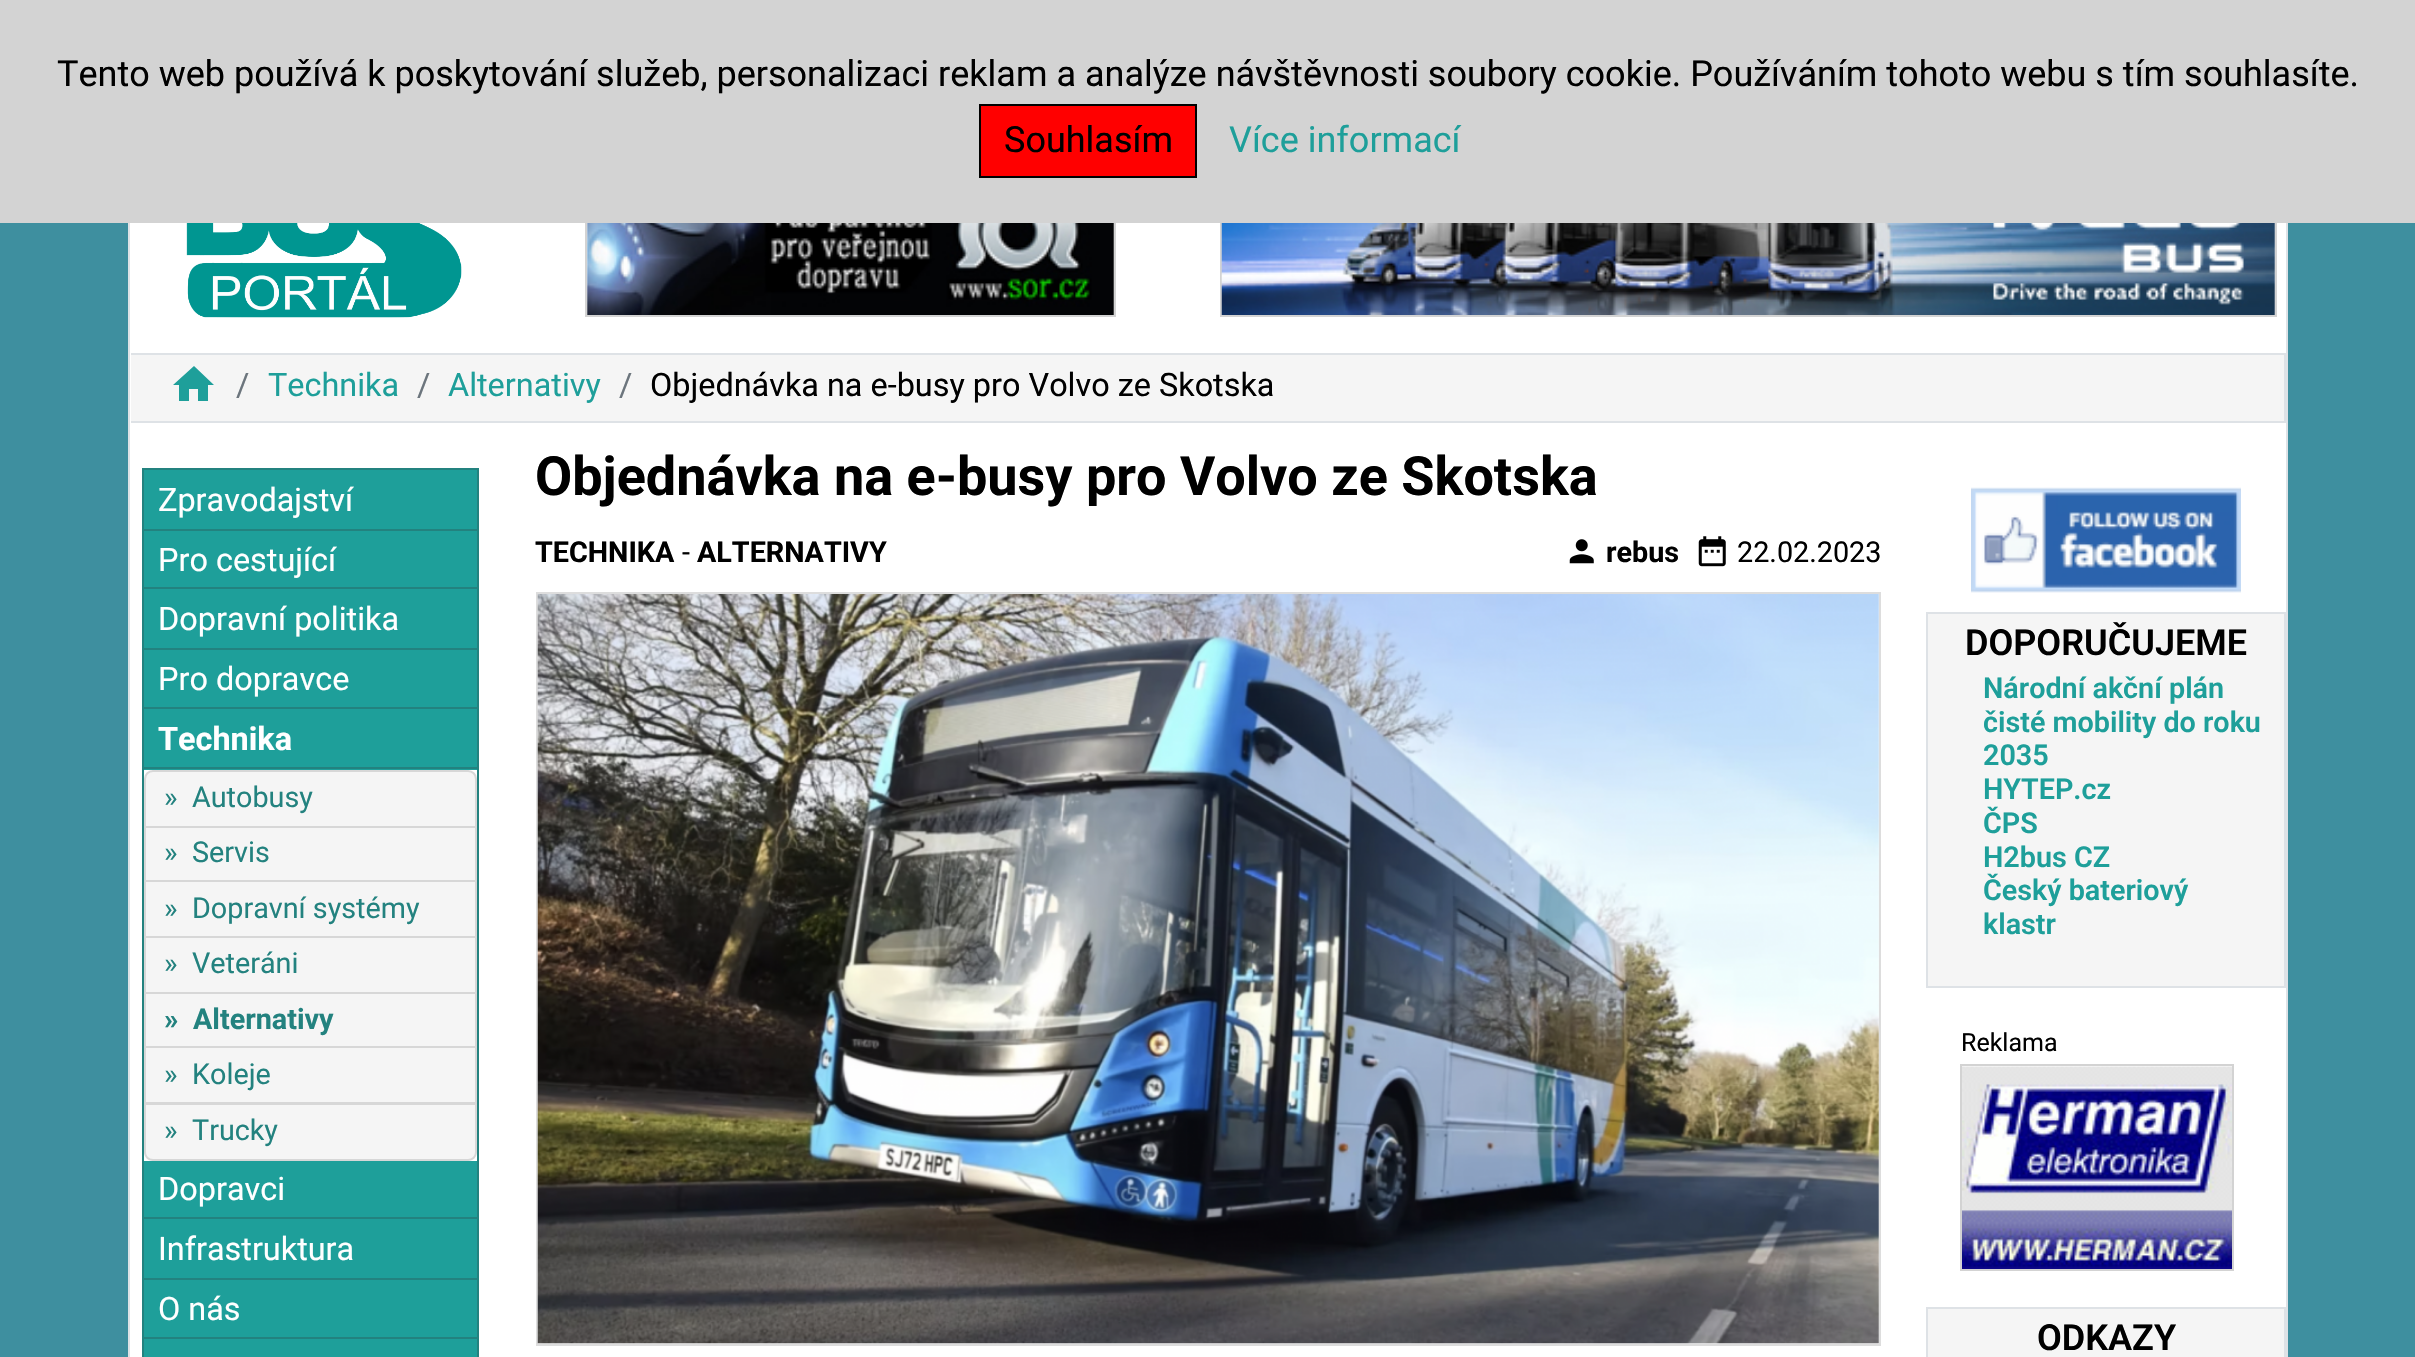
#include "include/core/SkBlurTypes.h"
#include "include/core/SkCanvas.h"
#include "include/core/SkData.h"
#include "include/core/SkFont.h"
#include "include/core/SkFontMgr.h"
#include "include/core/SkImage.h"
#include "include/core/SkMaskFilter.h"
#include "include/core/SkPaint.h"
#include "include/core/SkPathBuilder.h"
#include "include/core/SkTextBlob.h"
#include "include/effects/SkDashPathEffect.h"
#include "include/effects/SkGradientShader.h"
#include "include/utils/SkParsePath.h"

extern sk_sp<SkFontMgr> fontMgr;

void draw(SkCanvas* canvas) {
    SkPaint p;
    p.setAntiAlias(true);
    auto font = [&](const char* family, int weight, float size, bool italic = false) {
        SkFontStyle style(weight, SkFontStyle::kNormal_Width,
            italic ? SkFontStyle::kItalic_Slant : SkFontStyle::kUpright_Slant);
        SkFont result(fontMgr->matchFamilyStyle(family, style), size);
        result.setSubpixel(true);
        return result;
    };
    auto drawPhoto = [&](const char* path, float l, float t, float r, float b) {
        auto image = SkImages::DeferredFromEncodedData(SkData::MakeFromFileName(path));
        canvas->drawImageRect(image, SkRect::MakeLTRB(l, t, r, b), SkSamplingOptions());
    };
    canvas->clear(0xFF3E8F9F);
    p.setColor(0xFFFFFFFF);
    canvas->drawRect(SkRect::MakeLTRB(130, 223, 2286, 1357), p);
    p.setStyle(SkPaint::kStroke_Style);
    p.setStrokeWidth(2);
    p.setColor(0xFFDEE2E6);
    canvas->drawRect(SkRect::MakeLTRB(129, 1, 2287, 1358), p);
    p.setColor(0xFFD3D3D3);
    canvas->drawRect(SkRect::MakeLTRB(586, 179, 1115, 316), p);
    canvas->drawRect(SkRect::MakeLTRB(1221, 179, 2276, 316), p);
    p.setStyle(SkPaint::kFill_Style);
    canvas->drawRect(SkRect::MakeLTRB(0, 0, 2415, 223), p);
    auto font1 = font("Roboto", 400, 36);
    p.setColor(0xFF000000);
    canvas->drawString("Tento web používá k poskytování služeb, personalizaci reklam a analýze návštěvnosti soubory cookie. Používáním tohoto webu s tím souhlasíte.", 57, 86, font1, p);
    p.setColor(0xFFFF0000);
    canvas->drawRect(SkRect::MakeLTRB(980, 105, 1196, 177), p);
    p.setStyle(SkPaint::kStroke_Style);
    p.setColor(0xFF000000);
    canvas->drawRect(SkRect::MakeLTRB(980, 105, 1196, 177), p);
    p.setStyle(SkPaint::kFill_Style);
    canvas->drawString("Souhlasím", 1004, 152, font1, p);
    p.setColor(0xFF1E9F9A);
    canvas->drawString("Více informací", 1229, 152, font1, p);
    drawPhoto("media/1.png", 186, 223, 462, 318);
    drawPhoto("media/2.png", 587, 223, 1114, 315);
    drawPhoto("media/3.png", 1221, 223, 2275, 315);
    {
        const struct { float l, t, r, b; SkColor color; } items[] = {
            {131, 355, 2284, 421, 0xFFF5F5F5},
            {131, 353, 2286, 355, 0xFFDEE2E6},
            {2284, 353, 2286, 423, 0xFFDEE2E6},
            {131, 421, 2286, 423, 0xFFDEE2E6},
        };
        for (auto [l, t, r, b, color] : items) {
            p.setColor(color);
            canvas->drawRect(SkRect::MakeLTRB(l, t, r, b), p);
        }
    }
    p.setColor(0xFF1E9F9A);
    canvas->drawPath(SkPathBuilder().moveTo(189, 401).lineTo(179, 401).lineTo(179, 385).lineTo(173, 385).lineTo(194, 366).lineTo(214, 385).lineTo(208, 385).lineTo(208, 401).lineTo(198, 401).lineTo(198, 389).lineTo(189, 389).close().detach(), p);
    auto font2 = font("Roboto", 400, 32.4f);
    p.setColor(0xFF6C757D);
    canvas->drawString("/", 236, 396, font2, p);
    p.setColor(0xFF1E9F9A);
    canvas->drawString("Technika", 268, 396, font2, p);
    p.setColor(0xFF6C757D);
    canvas->drawString("/", 417, 396, font2, p);
    p.setColor(0xFF1E9F9A);
    canvas->drawString("Alternativy", 448, 396, font2, p);
    p.setColor(0xFF6C757D);
    canvas->drawString("/", 619, 396, font2, p);
    p.setColor(0xFF000000);
    canvas->drawString("Objednávka na e-busy pro Volvo ze Skotska", 650, 396, font2, p);
    p.setStyle(SkPaint::kStroke_Style);
    p.setColor(0xFF23827F);
    canvas->drawRect(SkRect::MakeLTRB(143, 469, 478, 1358), p);
    p.setStyle(SkPaint::kFill_Style);
    p.setColor(0xFF1E9F9A);
    canvas->drawRect(SkRect::MakeLTRB(144, 470, 477, 529), p);
    p.setColor(0xFF23827F);
    canvas->drawRect(SkRect::MakeLTRB(144, 529, 477, 531), p);
    p.setColor(0xFFFFFFFF);
    canvas->drawString("Zpravodajství", 158, 511, font2, p);
    p.setColor(0xFF1E9F9A);
    canvas->drawRect(SkRect::MakeLTRB(144, 531, 477, 648), p);
    p.setColor(0xFF23827F);
    canvas->drawRect(SkRect::MakeLTRB(144, 587, 477, 589), p);
    p.setColor(0xFFFFFFFF);
    canvas->drawString("Pro cestující", 158, 571, font2, p);
    p.setColor(0xFF23827F);
    canvas->drawRect(SkRect::MakeLTRB(144, 648, 477, 650), p);
    p.setColor(0xFFFFFFFF);
    canvas->drawString("Dopravní politika", 158, 630, font2, p);
    p.setColor(0xFF1E9F9A);
    canvas->drawRect(SkRect::MakeLTRB(144, 650, 477, 707), p);
    p.setColor(0xFF23827F);
    canvas->drawRect(SkRect::MakeLTRB(144, 707, 477, 709), p);
    p.setColor(0xFFFFFFFF);
    canvas->drawString("Pro dopravce", 158, 690, font2, p);
    p.setColor(0xFF1E9F9A);
    canvas->drawRect(SkRect::MakeLTRB(144, 709, 477, 770), p);
    p.setColor(0xFF23827F);
    canvas->drawRect(SkRect::MakeLTRB(144, 767, 477, 769), p);
    auto font3 = font("Roboto", 700, 32.4f);
    p.setColor(0xFFFFFFFF);
    canvas->drawString("Technika", 158, 750, font3, p);
    p.setColor(0xFFF5F5F5);
    canvas->drawPath(SkPathBuilder().moveTo(153, 770).lineTo(468, 770).cubicTo(473, 770, 477, 774, 477, 779).lineTo(477, 828).lineTo(144, 828).lineTo(144, 779).cubicTo(144, 774, 148, 770, 153, 770).close().detach(), p);
    p.setStyle(SkPaint::kStroke_Style);
    p.setColor(0x1F000000);
    canvas->drawPath(SkPathBuilder().moveTo(153, 771).lineTo(468, 771).cubicTo(472.5f, 771, 476, 774.5f, 476, 779).lineTo(476, 827).lineTo(145, 827).lineTo(145, 779).cubicTo(145, 774.5f, 148.5f, 771, 153, 771).close().detach(), p);
    auto font4 = font("Roboto", 400, 28.75f);
    p.setStyle(SkPaint::kFill_Style);
    p.setColor(0xFF23827F);
    canvas->drawString("»", 164, 807, font4, p);
    canvas->drawString("Autobusy", 192, 807, font4, p);
    p.setColor(0xFFF5F5F5);
    canvas->drawRect(SkRect::MakeLTRB(144, 828, 477, 1105), p);
    p.setColor(0xFFD6D6D6);
    canvas->drawPath(SkPathBuilder().moveTo(477, 828).lineTo(477, 882).lineTo(475, 880).lineTo(475, 828).close().detach(), p);
    p.setColor(0x1F000000);
    canvas->drawPath(SkPathBuilder().moveTo(477, 882).lineTo(144, 882).lineTo(146, 880).lineTo(475, 880).close().detach(), p);
    canvas->drawPath(SkPathBuilder().moveTo(144, 882).lineTo(144, 828).lineTo(146, 828).lineTo(146, 880).close().detach(), p);
    p.setColor(0xFF23827F);
    canvas->drawString("»", 164, 862, font4, p);
    canvas->drawString("Servis", 192, 862, font4, p);
    p.setColor(0xFFD6D6D6);
    canvas->drawPath(SkPathBuilder().moveTo(477, 882).lineTo(477, 938).lineTo(475, 936).lineTo(475, 882).close().detach(), p);
    p.setColor(0x1F000000);
    canvas->drawPath(SkPathBuilder().moveTo(477, 938).lineTo(144, 938).lineTo(146, 936).lineTo(475, 936).close().detach(), p);
    canvas->drawPath(SkPathBuilder().moveTo(144, 938).lineTo(144, 882).lineTo(146, 882).lineTo(146, 936).close().detach(), p);
    p.setColor(0xFF23827F);
    canvas->drawString("»", 164, 918, font4, p);
    canvas->drawString("Dopravní systémy", 192, 918, font4, p);
    p.setColor(0xFFD6D6D6);
    canvas->drawPath(SkPathBuilder().moveTo(477, 938).lineTo(477, 994).lineTo(475, 992).lineTo(475, 938).close().detach(), p);
    p.setColor(0x1F000000);
    canvas->drawPath(SkPathBuilder().moveTo(477, 994).lineTo(144, 994).lineTo(146, 992).lineTo(475, 992).close().detach(), p);
    canvas->drawPath(SkPathBuilder().moveTo(144, 994).lineTo(144, 938).lineTo(146, 938).lineTo(146, 992).close().detach(), p);
    p.setColor(0xFF23827F);
    canvas->drawString("»", 164, 973, font4, p);
    canvas->drawString("Veteráni", 192, 973, font4, p);
    p.setColor(0xFFD6D6D6);
    canvas->drawPath(SkPathBuilder().moveTo(477, 994).lineTo(477, 1048).lineTo(475, 1046).lineTo(475, 994).close().detach(), p);
    p.setColor(0x1F000000);
    canvas->drawPath(SkPathBuilder().moveTo(477, 1048).lineTo(144, 1048).lineTo(146, 1046).lineTo(475, 1046).close().detach(), p);
    canvas->drawPath(SkPathBuilder().moveTo(144, 1048).lineTo(144, 994).lineTo(146, 994).lineTo(146, 1046).close().detach(), p);
    auto font5 = font("Roboto", 700, 28.75f);
    p.setColor(0xFF23827F);
    canvas->drawString("»", 164, 1029, font5, p);
    canvas->drawString("Alternativy", 193, 1029, font5, p);
    p.setColor(0xFFD6D6D6);
    canvas->drawPath(SkPathBuilder().moveTo(477, 1048).lineTo(477, 1105).lineTo(475, 1102).lineTo(475, 1048).close().detach(), p);
    p.setColor(0x1F000000);
    canvas->drawPath(SkPathBuilder().moveTo(477, 1105).lineTo(144, 1105).lineTo(146, 1102).lineTo(475, 1102).close().detach(), p);
    canvas->drawPath(SkPathBuilder().moveTo(144, 1105).lineTo(144, 1048).lineTo(146, 1048).lineTo(146, 1102).close().detach(), p);
    p.setColor(0xFF23827F);
    canvas->drawString("»", 164, 1084, font4, p);
    canvas->drawString("Koleje", 192, 1084, font4, p);
    p.setColor(0xFFF5F5F5);
    canvas->drawPath(SkPathBuilder().moveTo(144, 1105).lineTo(477, 1105).lineTo(477, 1152).cubicTo(477, 1157, 473, 1161, 468, 1161).lineTo(153, 1161).cubicTo(148, 1161, 144, 1157, 144, 1152).close().detach(), p);
    p.setColor(0x1F000000);
    canvas->drawPath(SkPathBuilder(SkPathFillType::kEvenOdd).moveTo(144, 1105).lineTo(477, 1105).lineTo(477, 1152).cubicTo(477, 1157, 473, 1161, 468, 1161).lineTo(153, 1161).cubicTo(148, 1161, 144, 1157, 144, 1152).close().moveTo(146, 1105).lineTo(475, 1105).lineTo(475, 1152).cubicTo(475, 1156, 472, 1159, 468, 1159).lineTo(153, 1159).cubicTo(149, 1159, 146, 1156, 146, 1152).close().detach(), p);
    p.setColor(0xFF23827F);
    canvas->drawString("»", 164, 1140, font4, p);
    canvas->drawString("Trucky", 192, 1140, font4, p);
    p.setColor(0xFF1E9F9A);
    canvas->drawRect(SkRect::MakeLTRB(144, 1161, 477, 1278), p);
    p.setColor(0xFF23827F);
    canvas->drawRect(SkRect::MakeLTRB(144, 1217, 477, 1219), p);
    p.setColor(0xFFFFFFFF);
    canvas->drawString("Dopravci", 158, 1200, font2, p);
    p.setColor(0xFF23827F);
    canvas->drawRect(SkRect::MakeLTRB(144, 1278, 477, 1280), p);
    p.setColor(0xFFFFFFFF);
    canvas->drawString("Infrastruktura", 158, 1260, font2, p);
    p.setColor(0xFF1E9F9A);
    canvas->drawRect(SkRect::MakeLTRB(144, 1280, 477, 1337), p);
    p.setColor(0xFF23827F);
    canvas->drawRect(SkRect::MakeLTRB(144, 1337, 477, 1339), p);
    p.setColor(0xFFFFFFFF);
    canvas->drawString("O nás", 158, 1320, font2, p);
    p.setColor(0xFF1E9F9A);
    canvas->drawRect(SkRect::MakeLTRB(144, 1339, 477, 1357), p);
    auto font6 = font("Roboto", 700, 54);
    p.setColor(0xFF000000);
    canvas->drawString("Objednávka na e-busy pro Volvo ze Skotska", 535, 495, font6, p);
    canvas->drawString("TECHNIKA", 535, 562, font5, p);
    canvas->drawString("-", 682, 562, font4, p);
    canvas->drawString("ALTERNATIVY", 697, 562, font5, p);
    drawPhoto("media/4.png", 1569, 539, 1594, 564);
    canvas->drawString("rebus", 1606, 562, font5, p);
    drawPhoto("media/5.png", 1698, 536, 1726, 567);
    canvas->drawString("22.02.2023", 1737, 562, font4, p);
    p.setColor(0xFFF5F5F5);
    canvas->drawRect(SkRect::MakeLTRB(537, 593, 1880, 1345), p);
    p.setStyle(SkPaint::kStroke_Style);
    p.setColor(0xFFDDDDDD);
    canvas->drawRect(SkRect::MakeLTRB(537, 593, 1880, 1345), p);
    drawPhoto("media/6.png", 537, 594, 1879, 1344);
    drawPhoto("media/7.png", 1971, 487, 2241, 593);
    p.setStyle(SkPaint::kFill_Style);
    p.setColor(0xFFF5F5F5);
    canvas->drawRect(SkRect::MakeLTRB(1927, 613, 2285, 987), p);
    p.setStyle(SkPaint::kStroke_Style);
    p.setColor(0xFFDEE2E6);
    canvas->drawRect(SkRect::MakeLTRB(1927, 613, 2285, 987), p);
    auto font7 = font("Roboto", 600, 36);
    p.setStyle(SkPaint::kFill_Style);
    p.setColor(0xFF000000);
    canvas->drawString("DOPORUČUJEME", 1965, 655, font7, p);
    auto font8 = font("Roboto", 600, 28.75f);
    p.setColor(0xFF1E9F9A);
    {
        const struct { const char* s; float x, y; } items[] = {
            {"Národní akční plán", 1983, 698},
            {"čisté mobility do roku", 1983, 732},
            {"2035", 1983, 765},
            {"HYTEP.cz", 1983, 799},
            {"ČPS", 1983, 833},
            {"H2bus CZ", 1983, 867},
            {"Český bateriový", 1983, 900},
            {"klastr", 1983, 934},
        };
        for (auto [s, x, y] : items) {
            canvas->drawString(s, x, y, font8, p);
        }
    }
    auto font9 = font("Roboto", 400, 25);
    p.setColor(0xFF000000);
    canvas->drawString("Reklama", 1961, 1051, font9, p);
    p.setStyle(SkPaint::kStroke_Style);
    p.setColor(0xFFD3D3D3);
    canvas->drawRect(SkRect::MakeLTRB(1961, 1065, 2233, 1270), p);
    drawPhoto("media/8.png", 1962, 1066, 2232, 1269);
    p.setStyle(SkPaint::kFill_Style);
    p.setColor(0xFFF5F5F5);
    canvas->drawRect(SkRect::MakeLTRB(1927, 1308, 2285, 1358), p);
    p.setStyle(SkPaint::kStroke_Style);
    p.setColor(0xFFDEE2E6);
    canvas->drawRect(SkRect::MakeLTRB(1927, 1308, 2285, 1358), p);
    p.setStyle(SkPaint::kFill_Style);
    p.setColor(0xFF000000);
    canvas->drawString("ODKAZY", 2037, 1350, font7, p);
}
